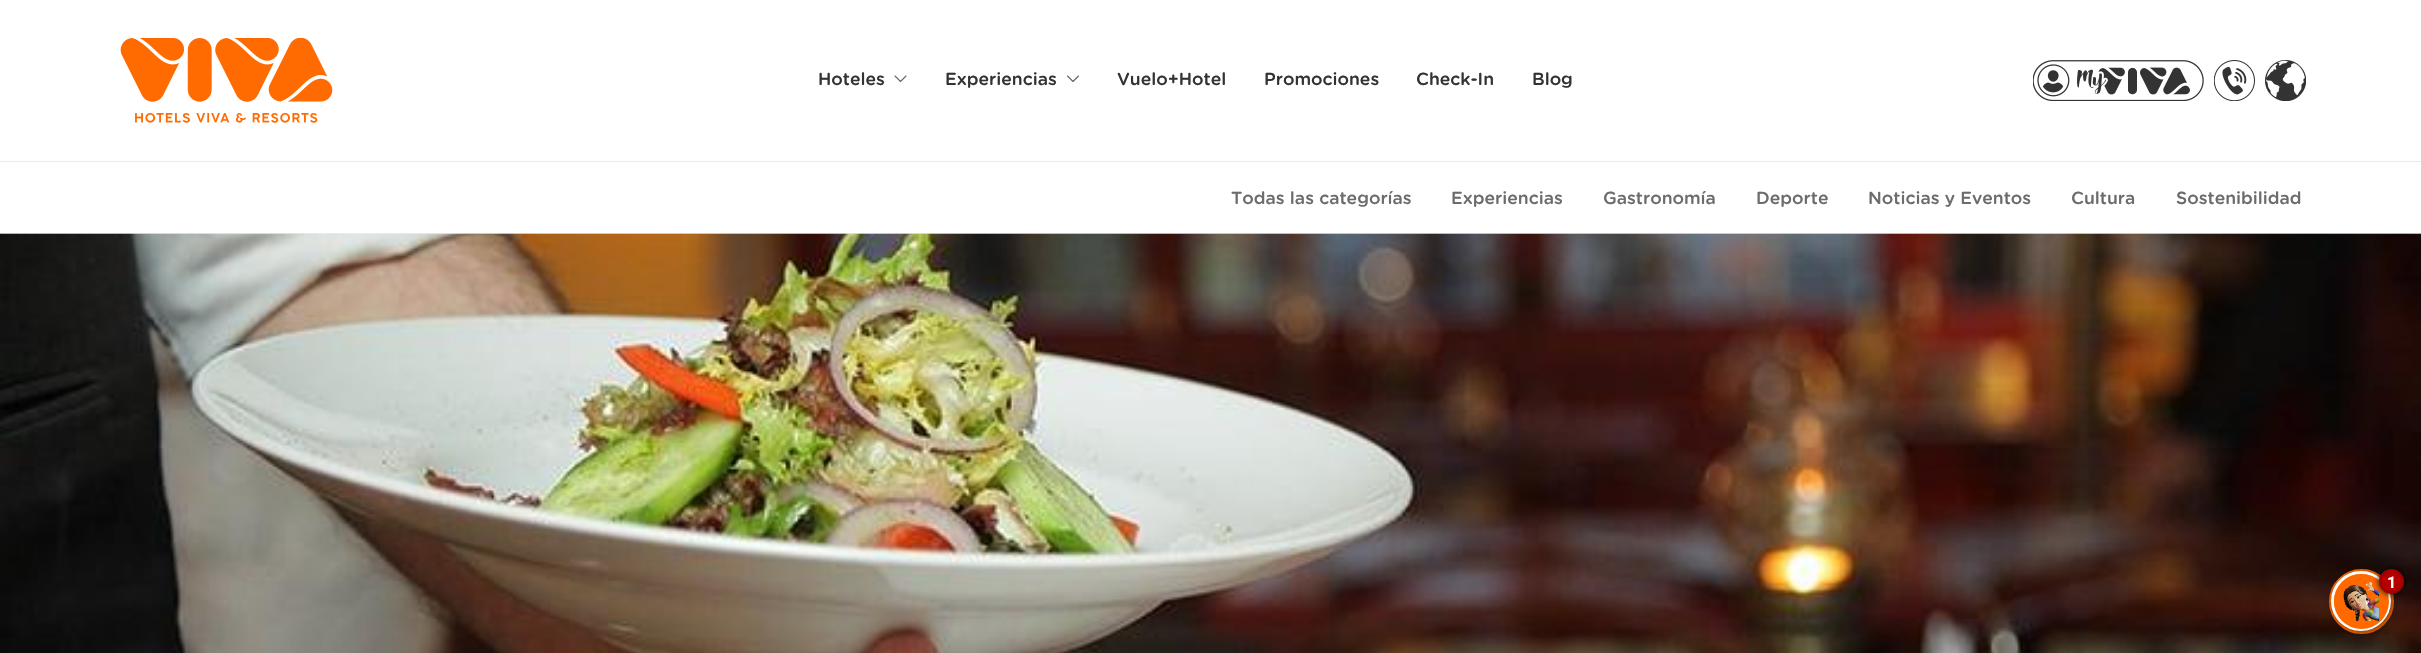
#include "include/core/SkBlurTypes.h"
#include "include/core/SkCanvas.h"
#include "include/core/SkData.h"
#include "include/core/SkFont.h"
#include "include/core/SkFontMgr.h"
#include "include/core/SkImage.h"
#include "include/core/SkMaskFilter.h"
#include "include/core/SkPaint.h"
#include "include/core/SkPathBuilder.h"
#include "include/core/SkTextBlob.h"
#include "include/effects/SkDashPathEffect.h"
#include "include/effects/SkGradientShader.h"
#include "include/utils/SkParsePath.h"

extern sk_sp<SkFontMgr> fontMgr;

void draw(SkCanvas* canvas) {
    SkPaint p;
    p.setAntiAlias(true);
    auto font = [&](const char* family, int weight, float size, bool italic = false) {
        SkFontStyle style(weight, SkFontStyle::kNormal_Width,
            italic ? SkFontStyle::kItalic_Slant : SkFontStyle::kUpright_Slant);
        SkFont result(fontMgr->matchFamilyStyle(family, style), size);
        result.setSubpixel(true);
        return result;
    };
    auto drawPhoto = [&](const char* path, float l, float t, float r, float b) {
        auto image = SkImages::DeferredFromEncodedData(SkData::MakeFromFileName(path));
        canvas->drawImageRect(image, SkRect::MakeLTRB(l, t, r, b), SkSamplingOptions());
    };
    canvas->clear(0xFFFFFFFF);
    drawPhoto("media/1.png", 120, 38, 333, 123);
    auto font1 = font("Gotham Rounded", 500, 17.5f);
    p.setColor(0xFF333333);
    canvas->drawString("Hoteles", 818, 85, font1, p);
    p.setStyle(SkPaint::kStroke_Style);
    p.setStrokeWidth(1.1f);
    p.setStrokeCap(SkPaint::kRound_Cap);
    p.setStrokeJoin(SkPaint::kRound_Join);
    p.setColor(0xFF666666);
    canvas->drawPath(SkPathBuilder().moveTo(906, 76).lineTo(900.5f, 81.5f).lineTo(895, 76).detach(), p);
    p.setStyle(SkPaint::kFill_Style);
    p.setColor(0xFF333333);
    canvas->drawString("Experiencias", 945, 85, font1, p);
    p.setStyle(SkPaint::kStroke_Style);
    p.setColor(0xFF666666);
    canvas->drawPath(SkPathBuilder().moveTo(1078.5f, 76).lineTo(1073, 81.5f).lineTo(1067.5f, 76).detach(), p);
    p.setStyle(SkPaint::kFill_Style);
    p.setColor(0xFF333333);
    {
        const struct { const char* s; float x, y; } items[] = {
            {"Vuelo+Hotel", 1117, 85},
            {"Promociones", 1264, 85},
            {"Check-In", 1416, 85},
            {"Blog", 1532, 85},
        };
        for (auto [s, x, y] : items) {
            canvas->drawString(s, x, y, font1, p);
        }
    }
    drawPhoto("media/2.png", 2033, 60, 2204, 101);
    drawPhoto("media/3.png", 2214, 60, 2255, 101);
    drawPhoto("media/4.png", 2265, 60, 2306, 101);
    p.setColor(0xFFEAEAED);
    canvas->drawRect(SkRect::MakeLTRB(0, 161, 2421, 162), p);
    canvas->drawRect(SkRect::MakeLTRB(0, 233, 2421, 234), p);
    p.setColor(0xFF6D6B6B);
    {
        const struct { const char* s; float x, y; } items[] = {
            {"Todas las categorías", 1231, 204},
            {"Experiencias", 1451, 204},
            {"Gastronomía", 1603, 204},
            {"Deporte", 1756, 204},
            {"Noticias y Eventos", 1868, 204},
            {"Cultura", 2071, 204},
            {"Sostenibilidad", 2176, 204},
        };
        for (auto [s, x, y] : items) {
            canvas->drawString(s, x, y, font1, p);
        }
    }
    drawPhoto("media/5.png", 0, 233, 2421, 653);
    p.setStyle(SkPaint::kStroke_Style);
    p.setStrokeWidth(3);
    p.setStrokeCap(SkPaint::kButt_Cap);
    p.setStrokeJoin(SkPaint::kMiter_Join);
    p.setColor(0xFFFF6900);
    canvas->drawCircle(2361.5f, 601.5f, 31, p);
    p.setStyle(SkPaint::kFill_Style);
    p.setColor(0xFF000000);
    p.setMaskFilter(SkMaskFilter::MakeBlur(kNormal_SkBlurStyle, 6));
    canvas->drawRoundRect(SkRect::MakeLTRB(2336, 576, 2389, 629), 26.5f, 26.5f, p);
    p.setMaskFilter(nullptr);
    p.setColor(0xFFFF6900);
    canvas->drawCircle(2361, 601, 28.5f, p);
    p.setStyle(SkPaint::kStroke_Style);
    p.setColor(0xFFFFFFFF);
    canvas->drawCircle(2361, 601, 28.5f, p);
    p.setStyle(SkPaint::kFill_Style);
    p.setColor(0xFFFF6900);
    canvas->drawCircle(2361.5f, 601.5f, 27.5f, p);
    drawPhoto("media/6.png", 2343, 582, 2380, 621);
    p.setColor(0xFF000000);
    p.setMaskFilter(SkMaskFilter::MakeBlur(kNormal_SkBlurStyle, 3));
    canvas->drawRoundRect(SkRect::MakeLTRB(2379, 569, 2404, 594), 12.5f, 12.5f, p);
    p.setMaskFilter(nullptr);
    p.setColor(0xFFB60000);
    canvas->drawCircle(2391.5f, 581.5f, 11, p);
    p.setStyle(SkPaint::kStroke_Style);
    p.setColor(0xFFA30000);
    canvas->drawCircle(2391.5f, 581.5f, 11, p);
    auto font2 = font("Roboto", 700, 16);
    p.setStyle(SkPaint::kFill_Style);
    p.setColor(0xFFFFFFFF);
    canvas->drawString("1", 2387, 588, font2, p);
}
